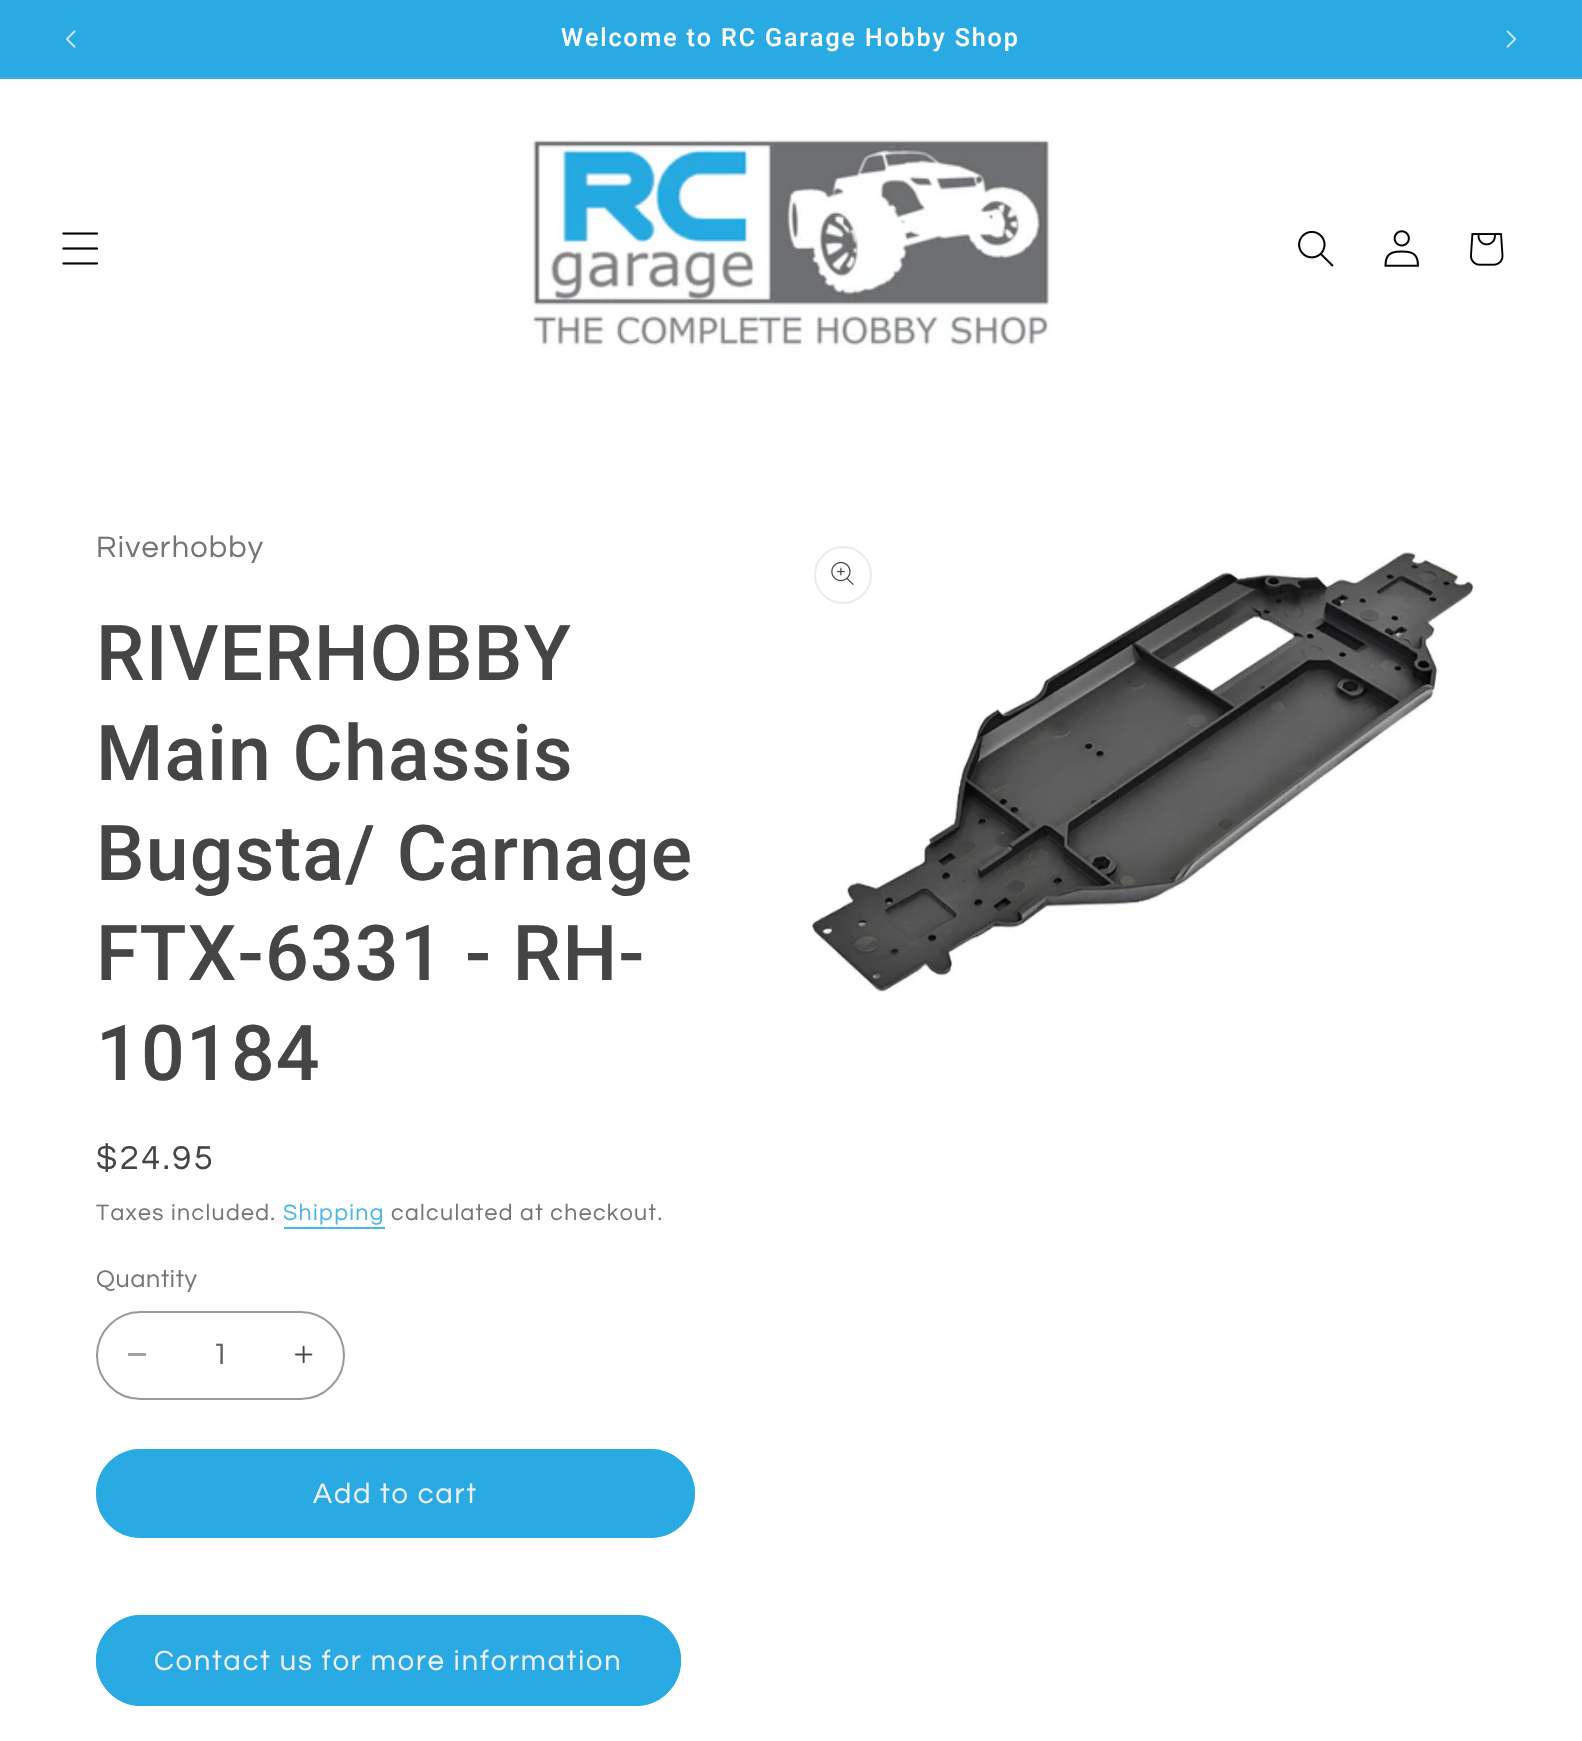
#include "include/core/SkBlurTypes.h"
#include "include/core/SkCanvas.h"
#include "include/core/SkData.h"
#include "include/core/SkFont.h"
#include "include/core/SkFontMgr.h"
#include "include/core/SkImage.h"
#include "include/core/SkMaskFilter.h"
#include "include/core/SkPaint.h"
#include "include/core/SkPathBuilder.h"
#include "include/core/SkTextBlob.h"
#include "include/effects/SkDashPathEffect.h"
#include "include/effects/SkGradientShader.h"
#include "include/utils/SkParsePath.h"

extern sk_sp<SkFontMgr> fontMgr;

void draw(SkCanvas* canvas) {
    SkPaint p;
    p.setAntiAlias(true);
    auto font = [&](const char* family, int weight, float size, bool italic = false) {
        SkFontStyle style(weight, SkFontStyle::kNormal_Width,
            italic ? SkFontStyle::kItalic_Slant : SkFontStyle::kUpright_Slant);
        SkFont result(fontMgr->matchFamilyStyle(family, style), size);
        result.setSubpixel(true);
        return result;
    };
    auto drawTracked = [&](const char* s, float x, float y, const SkFont& font, const SkPaint& ink, float letter, float word) {
        std::vector<SkGlyphID> glyphs(font.countText(s, strlen(s), SkTextEncoding::kUTF8));
        std::vector<float> xs(glyphs.size());
        font.textToGlyphs(s, strlen(s), SkTextEncoding::kUTF8, glyphs);
        font.getXPos(glyphs, xs, x);
        float extra = 0;
        for (size_t i = 0; i < glyphs.size(); i++) {
            xs[i] += extra;
            extra += letter + word * (glyphs[i] == font.unicharToGlyph(' '));
        }
        canvas->drawTextBlob(SkTextBlob::MakeFromPosHGlyphs(glyphs, xs, y, font), 0, 0, ink);
    };
    auto drawPhoto = [&](const char* path, float l, float t, float r, float b) {
        auto image = SkImages::DeferredFromEncodedData(SkData::MakeFromFileName(path));
        canvas->drawImageRect(image, SkRect::MakeLTRB(l, t, r, b), SkSamplingOptions());
    };
    canvas->clear(0xFFFFFFFF);
    p.setColor(0xFF29AAE2);
    canvas->drawRect(SkRect::MakeLTRB(0, 0, 1582, 77), p);
    p.setColor(0xFF3AB1E4);
    canvas->drawRect(SkRect::MakeLTRB(0, 77, 1582, 79), p);
    drawPhoto("media/1.png", 66, 30, 76, 48);
    auto font1 = font("Roboto", 500, 25);
    p.setColor(0xFFFFFFFF);
    drawTracked("Welcome to RC Garage Hobby Shop", 561, 46, font1, p, 1.9f, 0);
    drawPhoto("media/2.png", 1506, 30, 1516, 48);
    drawPhoto("media/3.png", 62, 232, 98, 265);
    drawPhoto("media/4.png", 529, 139, 1053, 348);
    drawPhoto("media/5.png", 1298, 230, 1334, 267);
    drawPhoto("media/6.png", 1384, 230, 1419, 267);
    drawPhoto("media/7.png", 1470, 233, 1504, 266);
    auto font2 = font("Questrial", 400, 30.75f);
    p.setColor(0xFF747474);
    drawTracked("Riverhobby", 96, 557, font2, p, 1.2f, 0);
    auto font3 = font("Roboto", 500, 77);
    p.setColor(0xFF454545);
    {
        const struct { const char* s; float x, y; } items[] = {
            {"RIVERHOBBY", 96, 680},
            {"Main Chassis", 96, 780},
            {"Bugsta/ Carnage", 96, 880},
            {"FTX-6331 - RH-", 96, 980},
            {"10184", 96, 1080},
        };
        for (auto [s, x, y] : items) {
            drawTracked(s, x, y, font3, p, 1.2f, 0);
        }
    }
    auto font4 = font("Questrial", 400, 34.5f);
    drawTracked("$24.95", 96, 1169, font4, p, 2.5f, 0);
    auto font5 = font("Questrial", 400, 23.1f);
    p.setColor(0xFF747474);
    drawTracked("Taxes included.", 96, 1220, font5, p, 1.35f, 0);
    p.setColor(0xFF49B7E6);
    drawTracked("Shipping", 283, 1220, font5, p, 1.35f, 0);
    canvas->drawRect(SkRect::MakeLTRB(284, 1227, 385, 1229), p);
    p.setColor(0xFF747474);
    drawTracked("calculated at checkout.", 391, 1220, font5, p, 1.35f, 0);
    auto font6 = font("Questrial", 400, 25);
    drawTracked("Quantity", 96, 1287, font6, p, 0.75f, 0);
    p.setColor(0xFFA2A2A2);
    canvas->drawRect(SkRect::MakeLTRB(128, 1353, 146, 1356), p);
    drawPhoto("media/8.png", 295, 1345, 313, 1364);
    p.setStyle(SkPaint::kStroke_Style);
    p.setStrokeWidth(2);
    p.setColor(0xFF999999);
    canvas->drawRoundRect(SkRect::MakeLTRB(97, 1312, 344, 1399), 43.5f, 43.5f, p);
    p.setStyle(SkPaint::kFill_Style);
    p.setColor(0xFF616161);
    canvas->drawString("1", 212, 1364, font2, p);
    p.setColor(0xFF29AAE2);
    canvas->drawRoundRect(SkRect::MakeLTRB(96, 1449, 695, 1538), 44.5f, 44.5f, p);
    p.setStyle(SkPaint::kStroke_Style);
    canvas->drawRoundRect(SkRect::MakeLTRB(97, 1450, 694, 1537), 43.5f, 43.5f, p);
    auto font7 = font("Questrial", 400, 28.9f);
    p.setStyle(SkPaint::kFill_Style);
    p.setColor(0xFFEFF0F5);
    drawTracked("Add to cart", 313, 1503, font7, p, 1.9f, 0);
    p.setColor(0xFF29AAE2);
    canvas->drawRoundRect(SkRect::MakeLTRB(96, 1615, 681, 1706), 45.5f, 45.5f, p);
    p.setStyle(SkPaint::kStroke_Style);
    canvas->drawRoundRect(SkRect::MakeLTRB(97, 1616, 680, 1705), 44.5f, 44.5f, p);
    p.setStyle(SkPaint::kFill_Style);
    p.setColor(0xFFEFF0F5);
    drawTracked("Contact us for more information", 154, 1670, font7, p, 1.9f, 0);
    drawPhoto("media/10.png", 810, 552, 1476, 992);
    p.setStyle(SkPaint::kStroke_Style);
    p.setColor(0xFFECECEC);
    canvas->drawCircle(843, 575, 28, p);
    drawPhoto("media/9.png", 831, 561, 854, 585);
}
